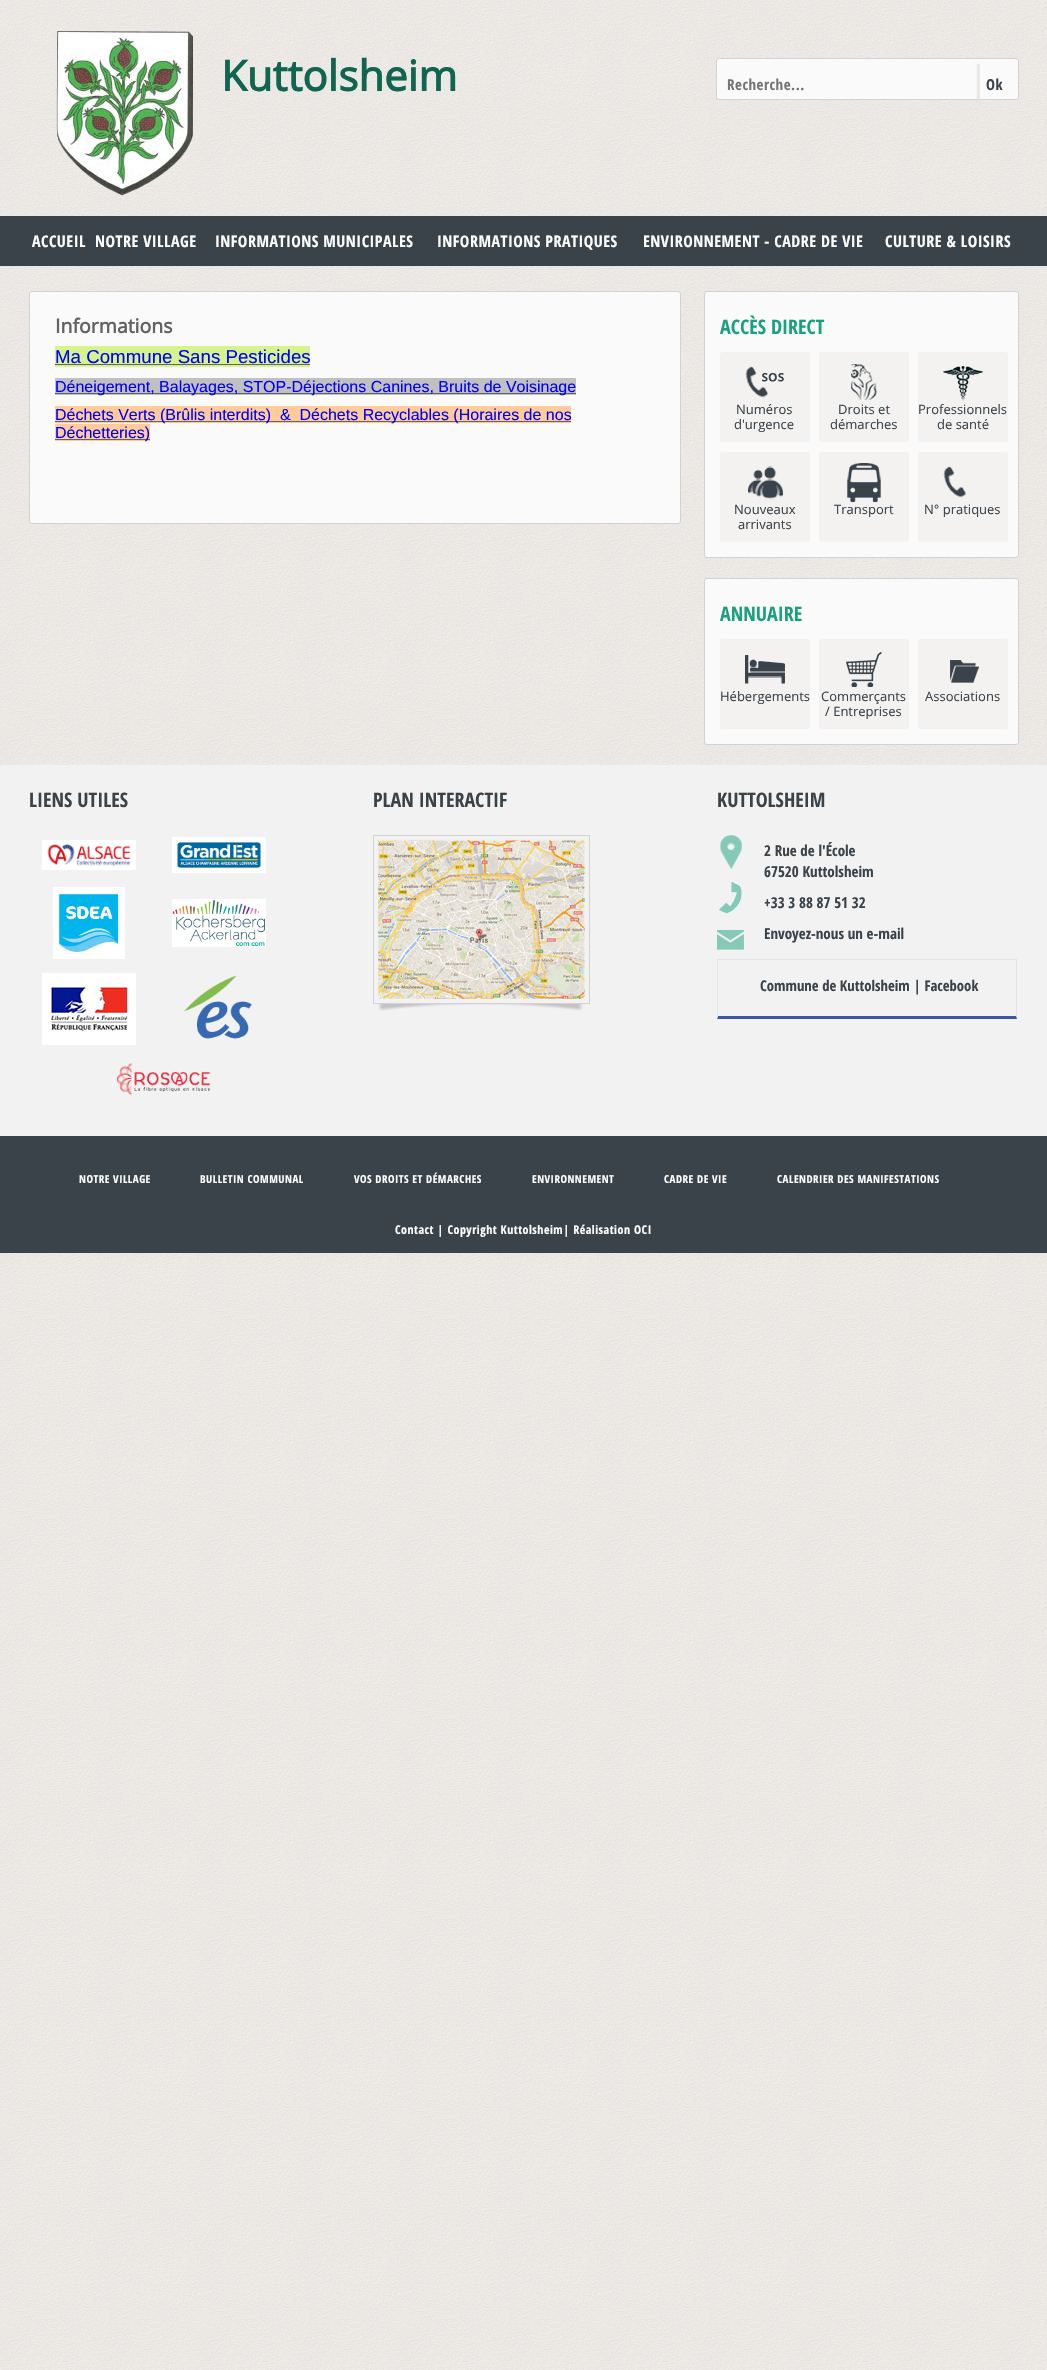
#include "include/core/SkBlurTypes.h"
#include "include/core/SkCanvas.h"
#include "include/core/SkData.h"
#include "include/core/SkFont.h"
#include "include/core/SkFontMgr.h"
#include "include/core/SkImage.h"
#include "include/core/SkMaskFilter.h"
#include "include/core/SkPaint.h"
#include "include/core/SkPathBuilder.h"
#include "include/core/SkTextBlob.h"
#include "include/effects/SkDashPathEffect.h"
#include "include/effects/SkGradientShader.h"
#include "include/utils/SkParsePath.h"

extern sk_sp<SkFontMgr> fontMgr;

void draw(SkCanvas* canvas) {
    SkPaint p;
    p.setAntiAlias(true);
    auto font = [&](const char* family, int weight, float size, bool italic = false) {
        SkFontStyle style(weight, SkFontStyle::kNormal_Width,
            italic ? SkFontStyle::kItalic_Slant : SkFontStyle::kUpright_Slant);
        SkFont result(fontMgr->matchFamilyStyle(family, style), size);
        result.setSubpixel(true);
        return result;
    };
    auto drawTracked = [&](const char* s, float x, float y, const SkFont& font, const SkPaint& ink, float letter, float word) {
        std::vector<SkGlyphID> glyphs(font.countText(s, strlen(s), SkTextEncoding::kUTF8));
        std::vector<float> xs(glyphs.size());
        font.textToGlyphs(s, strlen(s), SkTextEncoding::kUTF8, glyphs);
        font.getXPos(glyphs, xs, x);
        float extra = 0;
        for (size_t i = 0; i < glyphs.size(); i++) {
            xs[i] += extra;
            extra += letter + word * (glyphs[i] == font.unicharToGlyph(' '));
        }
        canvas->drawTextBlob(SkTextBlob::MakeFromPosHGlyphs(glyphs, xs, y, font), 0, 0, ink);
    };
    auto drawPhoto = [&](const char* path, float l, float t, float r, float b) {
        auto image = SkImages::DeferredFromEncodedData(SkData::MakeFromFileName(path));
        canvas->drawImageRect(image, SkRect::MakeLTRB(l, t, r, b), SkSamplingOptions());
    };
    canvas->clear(0xFFFFFFFF);
    drawPhoto("media/1.png", 0, 0, 1047, 2370);
    drawPhoto("media/2.png", 56, 31, 193, 196);
    auto font1 = font("Open Sans", 700, 42);
    p.setColor(0xFF0F6550);
    canvas->drawString("Kuttolsheim", 221, 91, font1, p);
    p.setColor(0xFFFAFAFA);
    canvas->drawRoundRect(SkRect::MakeLTRB(716.5f, 58.5f, 1018.5f, 99.5f), 2.5f, 2.5f, p);
    p.setStyle(SkPaint::kStroke_Style);
    p.setStrokeWidth(1);
    p.setColor(0xFFD3D1D1);
    canvas->drawRoundRect(SkRect::MakeLTRB(716.5f, 58.5f, 1018.5f, 99.5f), 2.5f, 2.5f, p);
    auto font2 = font("Open Sans Condensed", 700, 15);
    p.setStyle(SkPaint::kFill_Style);
    p.setColor(0xFF757575);
    drawTracked("Recherche...", 727, 90, font2, p, 0.5f, 0);
    drawPhoto("media/3.png", 976, 64, 980, 103);
    p.setColor(0xFF3A434A);
    drawTracked("Ok", 986, 90, font2, p, 0.5f, 0);
    canvas->drawRect(SkRect::MakeLTRB(0, 216, 1047, 266), p);
    auto font3 = font("Open Sans Condensed", 700, 16);
    p.setColor(0xFFFFFFFF);
    {
        const struct { const char* s; float x, y; } items[] = {
            {"ACCUEIL", 32, 247},
            {"NOTRE VILLAGE", 95, 247},
            {"INFORMATIONS MUNICIPALES", 215, 247},
            {"INFORMATIONS PRATIQUES", 437, 247},
            {"ENVIRONNEMENT - CADRE DE VIE", 643, 247},
            {"CULTURE & LOISIRS", 885, 247},
        };
        for (auto [s, x, y] : items) {
            drawTracked(s, x, y, font3, p, 0.5f, 0);
        }
    }
    p.setColor(0xFFFAFAFA);
    canvas->drawRoundRect(SkRect::MakeLTRB(29.5f, 291.5f, 680.5f, 523.5f), 2.5f, 2.5f, p);
    p.setStyle(SkPaint::kStroke_Style);
    p.setColor(0xFFD3D1D1);
    canvas->drawRoundRect(SkRect::MakeLTRB(29.5f, 291.5f, 680.5f, 523.5f), 2.5f, 2.5f, p);
    auto font4 = font("Open Sans", 700, 19.5f);
    p.setStyle(SkPaint::kFill_Style);
    p.setColor(0xFF626262);
    canvas->drawString("Informations", 55, 333, font4, p);
    p.setColor(0xFFD6F38C);
    canvas->drawRect(SkRect::MakeLTRB(55, 346, 310, 367), p);
    auto font5 = font("Liberation Sans", 400, 18.7f);
    p.setColor(0xFF0000FF);
    canvas->drawString("Ma Commune Sans Pesticides", 55, 363, font5, p);
    {
        const struct { float l, t, r, b; SkColor color; } items[] = {
            {55, 364, 310, 365, 0xFF626262},
            {55, 378, 576, 395, 0xFFC0C0C0},
            {55, 393, 576, 394, 0xFF626262},
        };
        for (auto [l, t, r, b, color] : items) {
            p.setColor(color);
            canvas->drawRect(SkRect::MakeLTRB(l, t, r, b), p);
        }
    }
    auto font6 = font("Liberation Sans", 400, 16);
    p.setColor(0xFF0000FF);
    canvas->drawString("Déneigement, Balayages, STOP-Déjections Canines, Bruits de Voisinage", 55, 392, font6, p);
    p.setColor(0xFFFFCC99);
    canvas->drawRect(SkRect::MakeLTRB(55, 406, 571, 423), p);
    p.setColor(0xFF626262);
    canvas->drawRect(SkRect::MakeLTRB(55, 421, 571, 422), p);
    p.setColor(0xFF0000FF);
    canvas->drawString("Déchets Verts (Brûlis interdits)  &  Déchets Recyclables (Horaires de nos", 55, 420, font6, p);
    p.setColor(0xFFFFCC99);
    canvas->drawRect(SkRect::MakeLTRB(55, 424, 150, 441), p);
    p.setColor(0xFF626262);
    canvas->drawRect(SkRect::MakeLTRB(55, 439, 150, 440), p);
    p.setColor(0xFF0000FF);
    canvas->drawString("Déchetteries)", 55, 438, font6, p);
    p.setColor(0xFFFAFAFA);
    canvas->drawRoundRect(SkRect::MakeLTRB(704.5f, 291.5f, 1018.5f, 557.5f), 2.5f, 2.5f, p);
    p.setStyle(SkPaint::kStroke_Style);
    p.setColor(0xFFD3D1D1);
    canvas->drawRoundRect(SkRect::MakeLTRB(704.5f, 291.5f, 1018.5f, 557.5f), 2.5f, 2.5f, p);
    auto font7 = font("Open Sans Condensed", 700, 20);
    p.setStyle(SkPaint::kFill_Style);
    p.setColor(0xFF17A17F);
    canvas->drawString("ACCÈS DIRECT", 720, 334, font7, p);
    p.setColor(0xFFF3F2F0);
    canvas->drawRoundRect(SkRect::MakeLTRB(720, 352, 810, 442), 3, 3, p);
    drawPhoto("media/4.png", 745, 366, 784, 398);
    auto font8 = font("Open Sans", 400, 13);
    p.setColor(0xFF3A434A);
    canvas->drawString("Numéros", 736, 414, font8, p);
    canvas->drawString("d'urgence", 734, 429, font8, p);
    p.setColor(0xFFF3F2F0);
    canvas->drawRoundRect(SkRect::MakeLTRB(819, 352, 909, 442), 3, 3, p);
    drawPhoto("media/5.png", 851, 364, 877, 400);
    p.setColor(0xFF3A434A);
    canvas->drawString("Droits et", 838, 414, font8, p);
    canvas->drawString("démarches", 830, 429, font8, p);
    p.setColor(0xFFF3F2F0);
    canvas->drawRoundRect(SkRect::MakeLTRB(918, 352, 1008, 442), 3, 3, p);
    drawPhoto("media/6.png", 943, 366, 983, 401);
    p.setColor(0xFF3A434A);
    canvas->drawString("Professionnels", 918, 414, font8, p);
    canvas->drawString("de santé", 937, 429, font8, p);
    p.setColor(0xFFF3F2F0);
    canvas->drawRoundRect(SkRect::MakeLTRB(720, 452, 810, 542), 3, 3, p);
    drawPhoto("media/7.png", 748, 466, 783, 502);
    p.setColor(0xFF3A434A);
    canvas->drawString("Nouveaux", 734, 514, font8, p);
    canvas->drawString("arrivants", 738, 529, font8, p);
    p.setColor(0xFFF3F2F0);
    canvas->drawRoundRect(SkRect::MakeLTRB(819, 452, 909, 542), 3, 3, p);
    drawPhoto("media/8.png", 847, 463, 881, 502);
    p.setColor(0xFF3A434A);
    canvas->drawString("Transport", 834, 514, font8, p);
    p.setColor(0xFFF3F2F0);
    canvas->drawRoundRect(SkRect::MakeLTRB(918, 452, 1008, 542), 3, 3, p);
    drawPhoto("media/9.png", 943, 466, 966, 498);
    p.setColor(0xFF3A434A);
    canvas->drawString("N° pratiques", 924, 514, font8, p);
    p.setColor(0xFFFAFAFA);
    canvas->drawRoundRect(SkRect::MakeLTRB(704.5f, 578.5f, 1018.5f, 744.5f), 2.5f, 2.5f, p);
    p.setStyle(SkPaint::kStroke_Style);
    p.setColor(0xFFD3D1D1);
    canvas->drawRoundRect(SkRect::MakeLTRB(704.5f, 578.5f, 1018.5f, 744.5f), 2.5f, 2.5f, p);
    p.setStyle(SkPaint::kFill_Style);
    p.setColor(0xFF17A17F);
    canvas->drawString("ANNUAIRE", 720, 621, font7, p);
    p.setColor(0xFFF3F2F0);
    canvas->drawRoundRect(SkRect::MakeLTRB(720, 639, 810, 729), 3, 3, p);
    drawPhoto("media/10.png", 745, 655, 785, 684);
    p.setColor(0xFF3A434A);
    canvas->drawString("Hébergements", 720, 701, font8, p);
    p.setColor(0xFFF3F2F0);
    canvas->drawRoundRect(SkRect::MakeLTRB(819, 639, 909, 729), 3, 3, p);
    drawPhoto("media/11.png", 846, 652, 882, 687);
    p.setColor(0xFF3A434A);
    canvas->drawString("Commerçants", 821, 701, font8, p);
    canvas->drawString("/ Entreprises", 825, 716, font8, p);
    p.setColor(0xFFF3F2F0);
    canvas->drawRoundRect(SkRect::MakeLTRB(918, 639, 1008, 729), 3, 3, p);
    drawPhoto("media/12.png", 950, 660, 979, 683);
    p.setColor(0xFF3A434A);
    canvas->drawString("Associations", 925, 701, font8, p);
    p.setColor(0xFFF2F2F2);
    canvas->drawRect(SkRect::MakeLTRB(0, 765, 1047, 1136), p);
    p.setColor(0xFF3A434A);
    canvas->drawString("LIENS UTILES", 29, 807, font7, p);
    drawPhoto("media/13.png", 42, 840, 136, 870);
    drawPhoto("media/14.png", 172, 837, 266, 873);
    drawPhoto("media/15.png", 53, 887, 125, 959);
    drawPhoto("media/16.png", 172, 899, 266, 947);
    drawPhoto("media/17.png", 42, 973, 136, 1045);
    drawPhoto("media/18.png", 184, 975, 252, 1039);
    drawPhoto("media/19.png", 117, 1063, 211, 1095);
    canvas->drawString("PLAN INTERACTIF", 373, 807, font7, p);
    drawPhoto("media/20.png", 378, 1004, 583, 1011);
    p.setStyle(SkPaint::kStroke_Style);
    p.setColor(0xFFD3D1D1);
    canvas->drawRect(SkRect::MakeLTRB(373.5f, 835.5f, 589.5f, 1003.5f), p);
    drawPhoto("media/21.png", 378, 840, 585, 999);
    p.setStyle(SkPaint::kFill_Style);
    p.setColor(0xFF3A434A);
    canvas->drawString("KUTTOLSHEIM", 717, 807, font7, p);
    drawPhoto("media/22.png", 717, 835, 744, 950);
    {
        const struct { const char* s; float x, y; } items[] = {
            {"2 Rue de l'École", 764, 856},
            {"67520 Kuttolsheim", 764, 877},
            {"+33 3 88 87 51 32", 764, 908},
            {"Envoyez-nous un e-mail", 764, 939},
        };
        for (auto [s, x, y] : items) {
            canvas->drawString(s, x, y, font2, p);
        }
    }
    p.setColor(0xFFE0E4E9);
    canvas->drawRect(SkRect::MakeLTRB(717, 959, 1017, 960), p);
    canvas->drawPath(SkPathBuilder().moveTo(1017, 959).lineTo(1017, 1019).lineTo(1016, 1016).lineTo(1016, 960).close().detach(), p);
    p.setColor(0xFF3B579D);
    canvas->drawPath(SkPathBuilder().moveTo(1017, 1019).lineTo(717, 1019).lineTo(718, 1016).lineTo(1016, 1016).close().detach(), p);
    p.setColor(0xFFE0E4E9);
    canvas->drawPath(SkPathBuilder().moveTo(717, 1019).lineTo(717, 959).lineTo(718, 960).lineTo(718, 1016).close().detach(), p);
    auto font9 = font("Open Sans Condensed", 700, 14.7f);
    p.setColor(0xFF3A434A);
    canvas->drawString("Commune de Kuttolsheim | Facebook", 760, 991, font9, p);
    canvas->drawRect(SkRect::MakeLTRB(0, 1136, 1047, 1253), p);
    auto font10 = font("Open Sans Condensed", 700, 11);
    p.setColor(0xFFFFFFFF);
    {
        const struct { const char* s; float x, y; } items[] = {
            {"NOTRE VILLAGE", 79, 1183},
            {"BULLETIN COMMUNAL", 200, 1183},
            {"VOS DROITS ET DÉMARCHES", 354, 1183},
            {"ENVIRONNEMENT", 532, 1183},
            {"CADRE DE VIE", 664, 1183},
            {"CALENDRIER DES MANIFESTATIONS", 777, 1183},
        };
        for (auto [s, x, y] : items) {
            drawTracked(s, x, y, font10, p, 0.5f, 0);
        }
    }
    auto font11 = font("Open Sans Condensed", 700, 12);
    drawTracked("Contact | Copyright Kuttolsheim| Réalisation OCI", 395, 1234, font11, p, 0.5f, 0);
}
